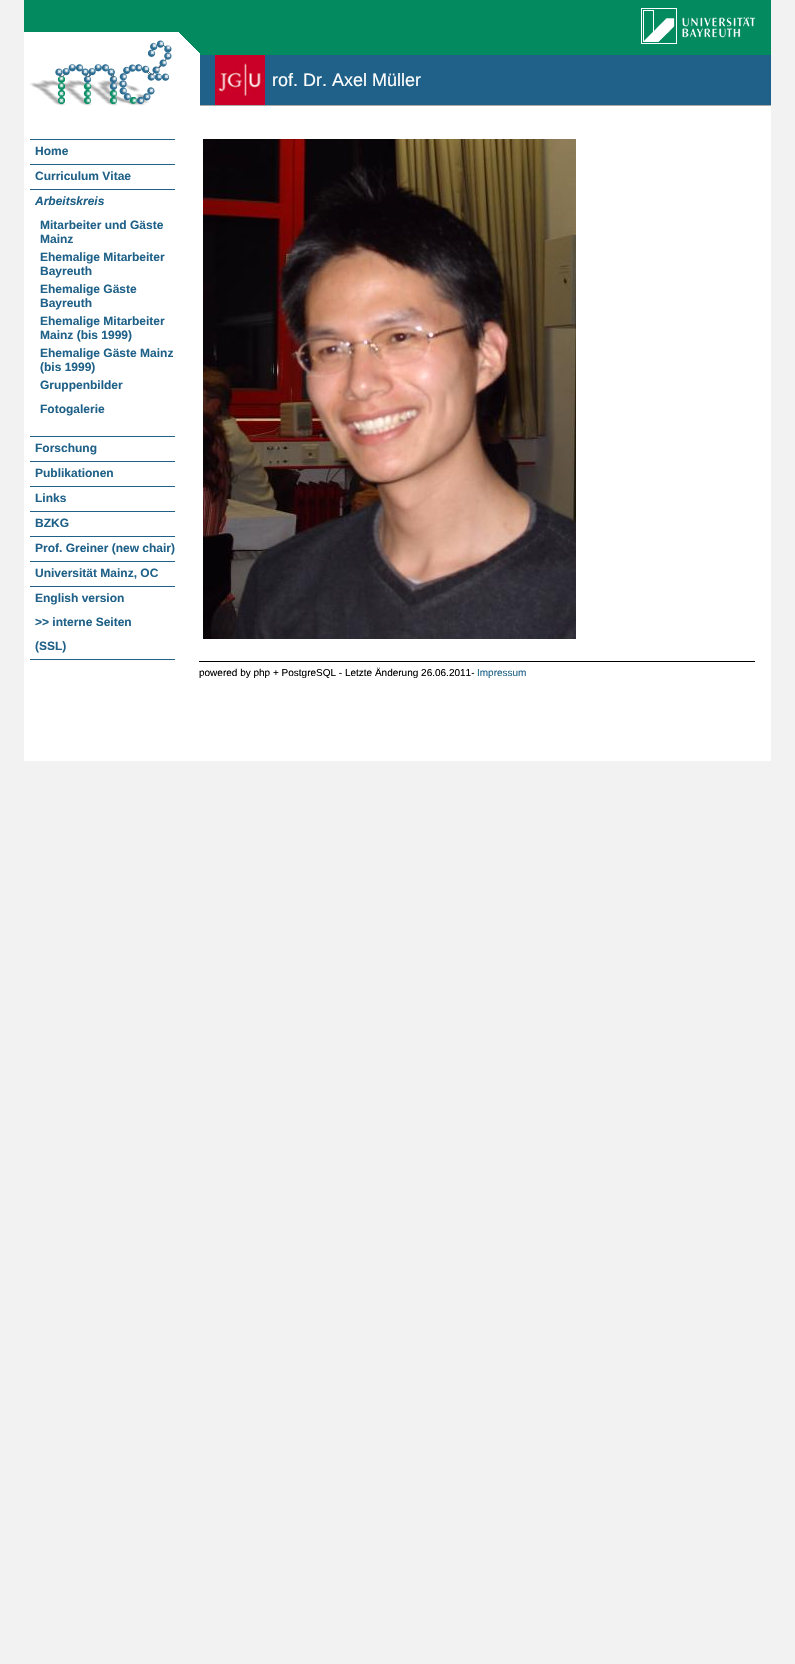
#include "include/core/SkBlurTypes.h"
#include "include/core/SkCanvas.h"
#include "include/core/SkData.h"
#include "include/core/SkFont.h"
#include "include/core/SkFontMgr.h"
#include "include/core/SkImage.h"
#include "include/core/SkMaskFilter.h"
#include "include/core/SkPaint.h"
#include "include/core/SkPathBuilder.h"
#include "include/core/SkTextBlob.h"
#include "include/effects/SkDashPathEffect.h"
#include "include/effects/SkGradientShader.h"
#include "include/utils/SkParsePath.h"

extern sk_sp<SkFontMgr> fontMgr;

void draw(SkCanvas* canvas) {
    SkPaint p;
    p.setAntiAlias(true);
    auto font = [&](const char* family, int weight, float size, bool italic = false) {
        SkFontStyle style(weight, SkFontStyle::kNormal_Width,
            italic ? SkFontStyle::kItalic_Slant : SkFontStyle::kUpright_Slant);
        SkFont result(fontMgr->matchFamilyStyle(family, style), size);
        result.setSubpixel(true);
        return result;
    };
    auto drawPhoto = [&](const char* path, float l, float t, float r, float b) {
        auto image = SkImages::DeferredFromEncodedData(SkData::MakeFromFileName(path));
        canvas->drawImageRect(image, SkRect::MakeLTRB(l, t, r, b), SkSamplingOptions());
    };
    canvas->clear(0xFFF2F2F2);
    {
        const struct { float l, t, r, b; SkColor color; } items[] = {
            {24, 106, 771, 761, 0xFFFFFFFF},
            {200, 105, 771, 106, 0xFFABABAB},
            {24, 33, 200, 106, 0xFFFFFFFF},
        };
        for (auto [l, t, r, b, color] : items) {
            p.setColor(color);
            canvas->drawRect(SkRect::MakeLTRB(l, t, r, b), p);
        }
    }
    drawPhoto("media/1.png", 24, 0, 200, 53);
    drawPhoto("media/2.png", 29, 40, 172, 106);
    p.setColor(0xFF1F6188);
    canvas->drawRect(SkRect::MakeLTRB(200, 55, 771, 105), p);
    p.setColor(0xFF038A5E);
    canvas->drawRect(SkRect::MakeLTRB(200, 0, 771, 55), p);
    drawPhoto("media/3.png", 641, 8, 755, 44);
    drawPhoto("media/4.png", 215, 55, 265, 105);
    auto font1 = font("Liberation Sans", 400, 18);
    p.setColor(0xFFFFFFFF);
    canvas->drawString("rof. Dr. Axel Müller", 272, 86, font1, p);
    p.setColor(0xFF1F6188);
    canvas->drawRect(SkRect::MakeLTRB(30, 139, 175, 140), p);
    canvas->drawRect(SkRect::MakeLTRB(30, 659, 175, 660), p);
    auto font2 = font("Liberation Sans", 700, 12);
    canvas->drawString("Home", 35, 155, font2, p);
    canvas->drawRect(SkRect::MakeLTRB(30, 164, 175, 165), p);
    canvas->drawString("Curriculum Vitae", 35, 180, font2, p);
    canvas->drawRect(SkRect::MakeLTRB(30, 189, 175, 190), p);
    auto font3 = font("Liberation Sans", 700, 12, true);
    canvas->drawString("Arbeitskreis", 35, 205, font3, p);
    {
        const struct { const char* s; float x, y; } items[] = {
            {"Mitarbeiter und Gäste", 40, 229},
            {"Mainz", 40, 243},
            {"Ehemalige Mitarbeiter", 40, 261},
            {"Bayreuth", 40, 275},
            {"Ehemalige Gäste", 40, 293},
            {"Bayreuth", 40, 307},
            {"Ehemalige Mitarbeiter", 40, 325},
            {"Mainz (bis 1999)", 40, 339},
            {"Ehemalige Gäste Mainz", 40, 357},
            {"(bis 1999)", 40, 371},
            {"Gruppenbilder", 40, 389},
            {"Fotogalerie", 40, 413},
        };
        for (auto [s, x, y] : items) {
            canvas->drawString(s, x, y, font2, p);
        }
    }
    canvas->drawRect(SkRect::MakeLTRB(30, 436, 175, 437), p);
    canvas->drawString("Forschung", 35, 452, font2, p);
    canvas->drawRect(SkRect::MakeLTRB(30, 461, 175, 462), p);
    canvas->drawString("Publikationen", 35, 477, font2, p);
    canvas->drawRect(SkRect::MakeLTRB(30, 486, 175, 487), p);
    canvas->drawString("Links", 35, 502, font2, p);
    canvas->drawRect(SkRect::MakeLTRB(30, 511, 175, 512), p);
    canvas->drawString("BZKG", 35, 527, font2, p);
    canvas->drawRect(SkRect::MakeLTRB(30, 536, 175, 537), p);
    canvas->drawString("Prof. Greiner (new chair)", 35, 552, font2, p);
    canvas->drawRect(SkRect::MakeLTRB(30, 561, 175, 562), p);
    canvas->drawString("Universität Mainz, OC", 35, 577, font2, p);
    canvas->drawRect(SkRect::MakeLTRB(30, 586, 175, 587), p);
    {
        const struct { const char* s; float x, y; } items[] = {
            {"English version", 35, 602},
            {">> interne Seiten", 35, 626},
            {"(SSL)", 35, 650},
        };
        for (auto [s, x, y] : items) {
            canvas->drawString(s, x, y, font2, p);
        }
    }
    drawPhoto("media/5.png", 203, 139, 576, 639);
    p.setColor(0xFF000000);
    canvas->drawRect(SkRect::MakeLTRB(199, 661, 755, 662), p);
    auto font4 = font("Liberation Sans", 400, 10);
    canvas->drawString("powered by php + PostgreSQL - Letzte Änderung 26.06.2011-", 199, 676, font4, p);
    p.setColor(0xFF1F6188);
    canvas->drawString("Impressum", 477, 676, font4, p);
}
